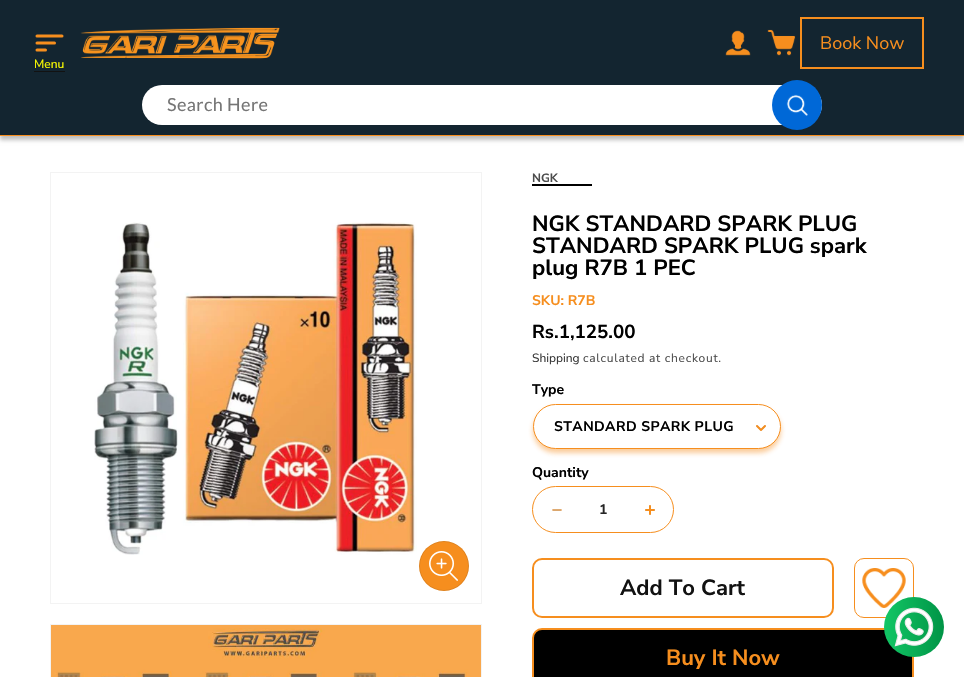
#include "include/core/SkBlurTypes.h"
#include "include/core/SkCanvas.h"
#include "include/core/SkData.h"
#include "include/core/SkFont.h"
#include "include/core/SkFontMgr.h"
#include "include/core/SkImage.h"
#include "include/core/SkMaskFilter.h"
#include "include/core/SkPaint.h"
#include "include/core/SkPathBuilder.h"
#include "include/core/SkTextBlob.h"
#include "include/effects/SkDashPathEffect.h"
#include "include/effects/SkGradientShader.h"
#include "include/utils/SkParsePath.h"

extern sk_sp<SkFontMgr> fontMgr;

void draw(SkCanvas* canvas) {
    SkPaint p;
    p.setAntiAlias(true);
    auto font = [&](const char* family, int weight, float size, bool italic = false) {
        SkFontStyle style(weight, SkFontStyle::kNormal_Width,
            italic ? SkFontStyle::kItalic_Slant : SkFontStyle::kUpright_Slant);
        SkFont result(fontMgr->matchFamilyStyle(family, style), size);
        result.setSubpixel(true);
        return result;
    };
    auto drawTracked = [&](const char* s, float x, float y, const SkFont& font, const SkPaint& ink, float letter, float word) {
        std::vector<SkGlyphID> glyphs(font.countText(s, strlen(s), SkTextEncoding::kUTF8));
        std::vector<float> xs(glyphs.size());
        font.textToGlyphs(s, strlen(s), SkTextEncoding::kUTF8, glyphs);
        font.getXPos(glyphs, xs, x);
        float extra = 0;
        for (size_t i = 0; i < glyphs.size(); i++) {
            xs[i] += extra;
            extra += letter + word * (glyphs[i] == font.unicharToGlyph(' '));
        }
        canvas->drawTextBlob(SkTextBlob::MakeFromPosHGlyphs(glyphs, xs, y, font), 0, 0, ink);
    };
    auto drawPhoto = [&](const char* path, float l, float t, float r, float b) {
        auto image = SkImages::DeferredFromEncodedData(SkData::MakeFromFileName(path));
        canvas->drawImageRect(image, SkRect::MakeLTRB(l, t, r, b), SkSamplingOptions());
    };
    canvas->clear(0xFFFFFFFF);
    p.setColor(0x40000000);
    p.setMaskFilter(SkMaskFilter::MakeBlur(kNormal_SkBlurStyle, 2));
    canvas->drawRect(SkRect::MakeLTRB(0, 4, 964, 140), p);
    p.setMaskFilter(nullptr);
    p.setColor(0xFF132530);
    canvas->drawRect(SkRect::MakeLTRB(0, 0, 964, 135), p);
    p.setColor(0xFFF68E1E);
    canvas->drawRect(SkRect::MakeLTRB(0, 135, 964, 136), p);
    drawPhoto("media/1.png", 80, 27, 280, 59);
    drawPhoto("media/2.png", 725, 30, 751, 56);
    drawPhoto("media/3.png", 767, 29, 796, 56);
    p.setStyle(SkPaint::kStroke_Style);
    p.setStrokeWidth(2);
    canvas->drawRect(SkRect::MakeLTRB(801, 18, 923, 68), p);
    auto font1 = font("Nunito Sans", 400, 18);
    p.setStyle(SkPaint::kFill_Style);
    canvas->drawString("Book Now", 820, 49, font1, p);
    p.setStyle(SkPaint::kStroke_Style);
    p.setStrokeWidth(3);
    p.setStrokeCap(SkPaint::kRound_Cap);
    canvas->drawPath(SkPathBuilder().moveTo(45.5f, 50).lineTo(37, 50).moveTo(54.5f, 43).lineTo(37, 43).moveTo(62, 36).lineTo(37, 36).detach(), p);
    auto font2 = font("Nunito Sans", 400, 12);
    p.setStyle(SkPaint::kFill_Style);
    p.setColor(0xFFFFFF00);
    canvas->drawString("Menu", 34, 68, font2, p);
    p.setColor(0xFF121212);
    canvas->drawRect(SkRect::MakeLTRB(34, 71, 65, 72), p);
    p.setColor(0xFFFFFFFF);
    canvas->drawRoundRect(SkRect::MakeLTRB(142, 85, 822, 125), 20, 20, p);
    auto font3 = font("Lato", 400, 18);
    p.setColor(0xFF757575);
    drawTracked("Search Here", 167, 111, font3, p, 0.4f, 0);
    p.setColor(0xFF0068D7);
    canvas->drawCircle(797, 105, 25, p);
    drawPhoto("media/4.png", 786, 94, 808, 116);
    p.setStyle(SkPaint::kStroke_Style);
    p.setStrokeWidth(1);
    p.setStrokeCap(SkPaint::kButt_Cap);
    p.setColor(0xFFF3F3F3);
    canvas->drawRect(SkRect::MakeLTRB(50.5f, 172.5f, 481.5f, 603.5f), p);
    drawPhoto("media/5.png", 94, 222, 417, 555);
    p.setStyle(SkPaint::kFill_Style);
    p.setColor(0xFFF68E1E);
    canvas->drawCircle(444, 566, 25, p);
    p.setStyle(SkPaint::kStroke_Style);
    p.setColor(0x1A121212);
    canvas->drawCircle(444, 566, 24.5f, p);
    drawPhoto("media/6.png", 429, 551, 458, 581);
    p.setColor(0xFFF3F3F3);
    canvas->drawRect(SkRect::MakeLTRB(50.5f, 624.5f, 481.5f, 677.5f), p);
    drawPhoto("media/7.png", 51, 625, 481, 677);
    auto font4 = font("Nunito Sans", 700, 12);
    p.setStyle(SkPaint::kFill_Style);
    p.setColor(0xFF4D4D4D);
    canvas->drawString("NGK", 532, 182, font4, p);
    p.setColor(0xFF000000);
    canvas->drawRect(SkRect::MakeLTRB(532, 184, 592, 186), p);
    auto font5 = font("Nunito Sans", 700, 22.1f);
    {
        const struct { const char* s; float x, y; } items[] = {
            {"NGK STANDARD SPARK PLUG", 532, 231},
            {"STANDARD SPARK PLUG spark", 532, 253},
            {"plug R7B 1 PEC", 532, 275},
        };
        for (auto [s, x, y] : items) {
            canvas->drawString(s, x, y, font5, p);
        }
    }
    auto font6 = font("Nunito Sans", 700, 14);
    p.setColor(0xFFF68E1E);
    canvas->drawString("SKU: R7B", 532, 305, font6, p);
    auto font7 = font("Nunito Sans", 700, 18.75f);
    p.setColor(0xFF000000);
    canvas->drawString("Rs.1,125.00", 532, 338, font7, p);
    p.setColor(0xFF363636);
    canvas->drawString("Shipping", 532, 362, font2, p);
    p.setColor(0xFF4D4D4D);
    drawTracked("calculated at checkout.", 583, 362, font2, p, 0.7f, 0);
    p.setColor(0xFF000000);
    canvas->drawString("Type", 532, 394, font6, p);
    p.setColor(0x73F68E1E);
    p.setMaskFilter(SkMaskFilter::MakeBlur(kNormal_SkBlurStyle, 2.5f));
    canvas->drawRoundRect(SkRect::MakeLTRB(533, 408, 781, 453), 22.5f, 22.5f, p);
    p.setMaskFilter(nullptr);
    p.setColor(0xFFFFFFFF);
    canvas->drawRoundRect(SkRect::MakeLTRB(533.5f, 404.5f, 780.5f, 448.5f), 22, 22, p);
    p.setStyle(SkPaint::kStroke_Style);
    p.setColor(0xFFF68E1E);
    canvas->drawRoundRect(SkRect::MakeLTRB(533.5f, 404.5f, 780.5f, 448.5f), 22, 22, p);
    p.setStyle(SkPaint::kFill_Style);
    p.setColor(0xFF000000);
    drawTracked("STANDARD SPARK PLUG", 554, 431, font6, p, 0.4f, 0);
    drawPhoto("media/8.png", 756, 425, 766, 431);
    canvas->drawString("Quantity", 532, 477, font6, p);
    p.setStyle(SkPaint::kStroke_Style);
    p.setColor(0xFFF68E1E);
    canvas->drawRoundRect(SkRect::MakeLTRB(532.5f, 486.5f, 673.5f, 532.5f), 23, 23, p);
    drawPhoto("media/9.png", 552, 509, 562, 511);
    p.setStyle(SkPaint::kFill_Style);
    p.setColor(0xFF262626);
    canvas->drawString("1", 599, 514, font6, p);
    drawPhoto("media/10.png", 645, 505, 655, 515);
    p.setStyle(SkPaint::kStroke_Style);
    p.setStrokeWidth(2);
    p.setColor(0xFFF68E1E);
    canvas->drawRoundRect(SkRect::MakeLTRB(533, 559, 833, 617), 9, 9, p);
    auto font8 = font("Nunito Sans", 700, 22);
    p.setStyle(SkPaint::kFill_Style);
    p.setColor(0xFF121212);
    canvas->drawString("Add To Cart", 620, 595, font8, p);
    p.setStyle(SkPaint::kStroke_Style);
    p.setStrokeWidth(1);
    p.setColor(0xFFF68E1E);
    canvas->drawRoundRect(SkRect::MakeLTRB(854.5f, 558.5f, 913.5f, 617.5f), 9.5f, 9.5f, p);
    drawPhoto("media/11.png", 862, 568, 906, 608);
    p.setStyle(SkPaint::kFill_Style);
    p.setColor(0xFF000000);
    canvas->drawRoundRect(SkRect::MakeLTRB(533, 629, 913, 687), 9, 9, p);
    p.setStyle(SkPaint::kStroke_Style);
    p.setStrokeWidth(2);
    p.setColor(0xFFF68E1E);
    canvas->drawRoundRect(SkRect::MakeLTRB(533, 629, 913, 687), 9, 9, p);
    p.setStyle(SkPaint::kFill_Style);
    canvas->drawString("Buy It Now", 666, 665, font8, p);
    {
        const SkColor colors[] = {0xFF12C665, 0xFF009446};
        const float stops[] = {0.01f, 1};
        const SkPoint ends[] = {{884, 627}, {944, 627}};
        p.setShader(SkGradientShader::MakeLinear(ends, colors, stops, 2, SkTileMode::kClamp));
        p.setAlpha(255);
    }
    canvas->drawCircle(914, 627, 30, p);
    drawPhoto("media/12.png", 894, 607, 934, 647);
}
